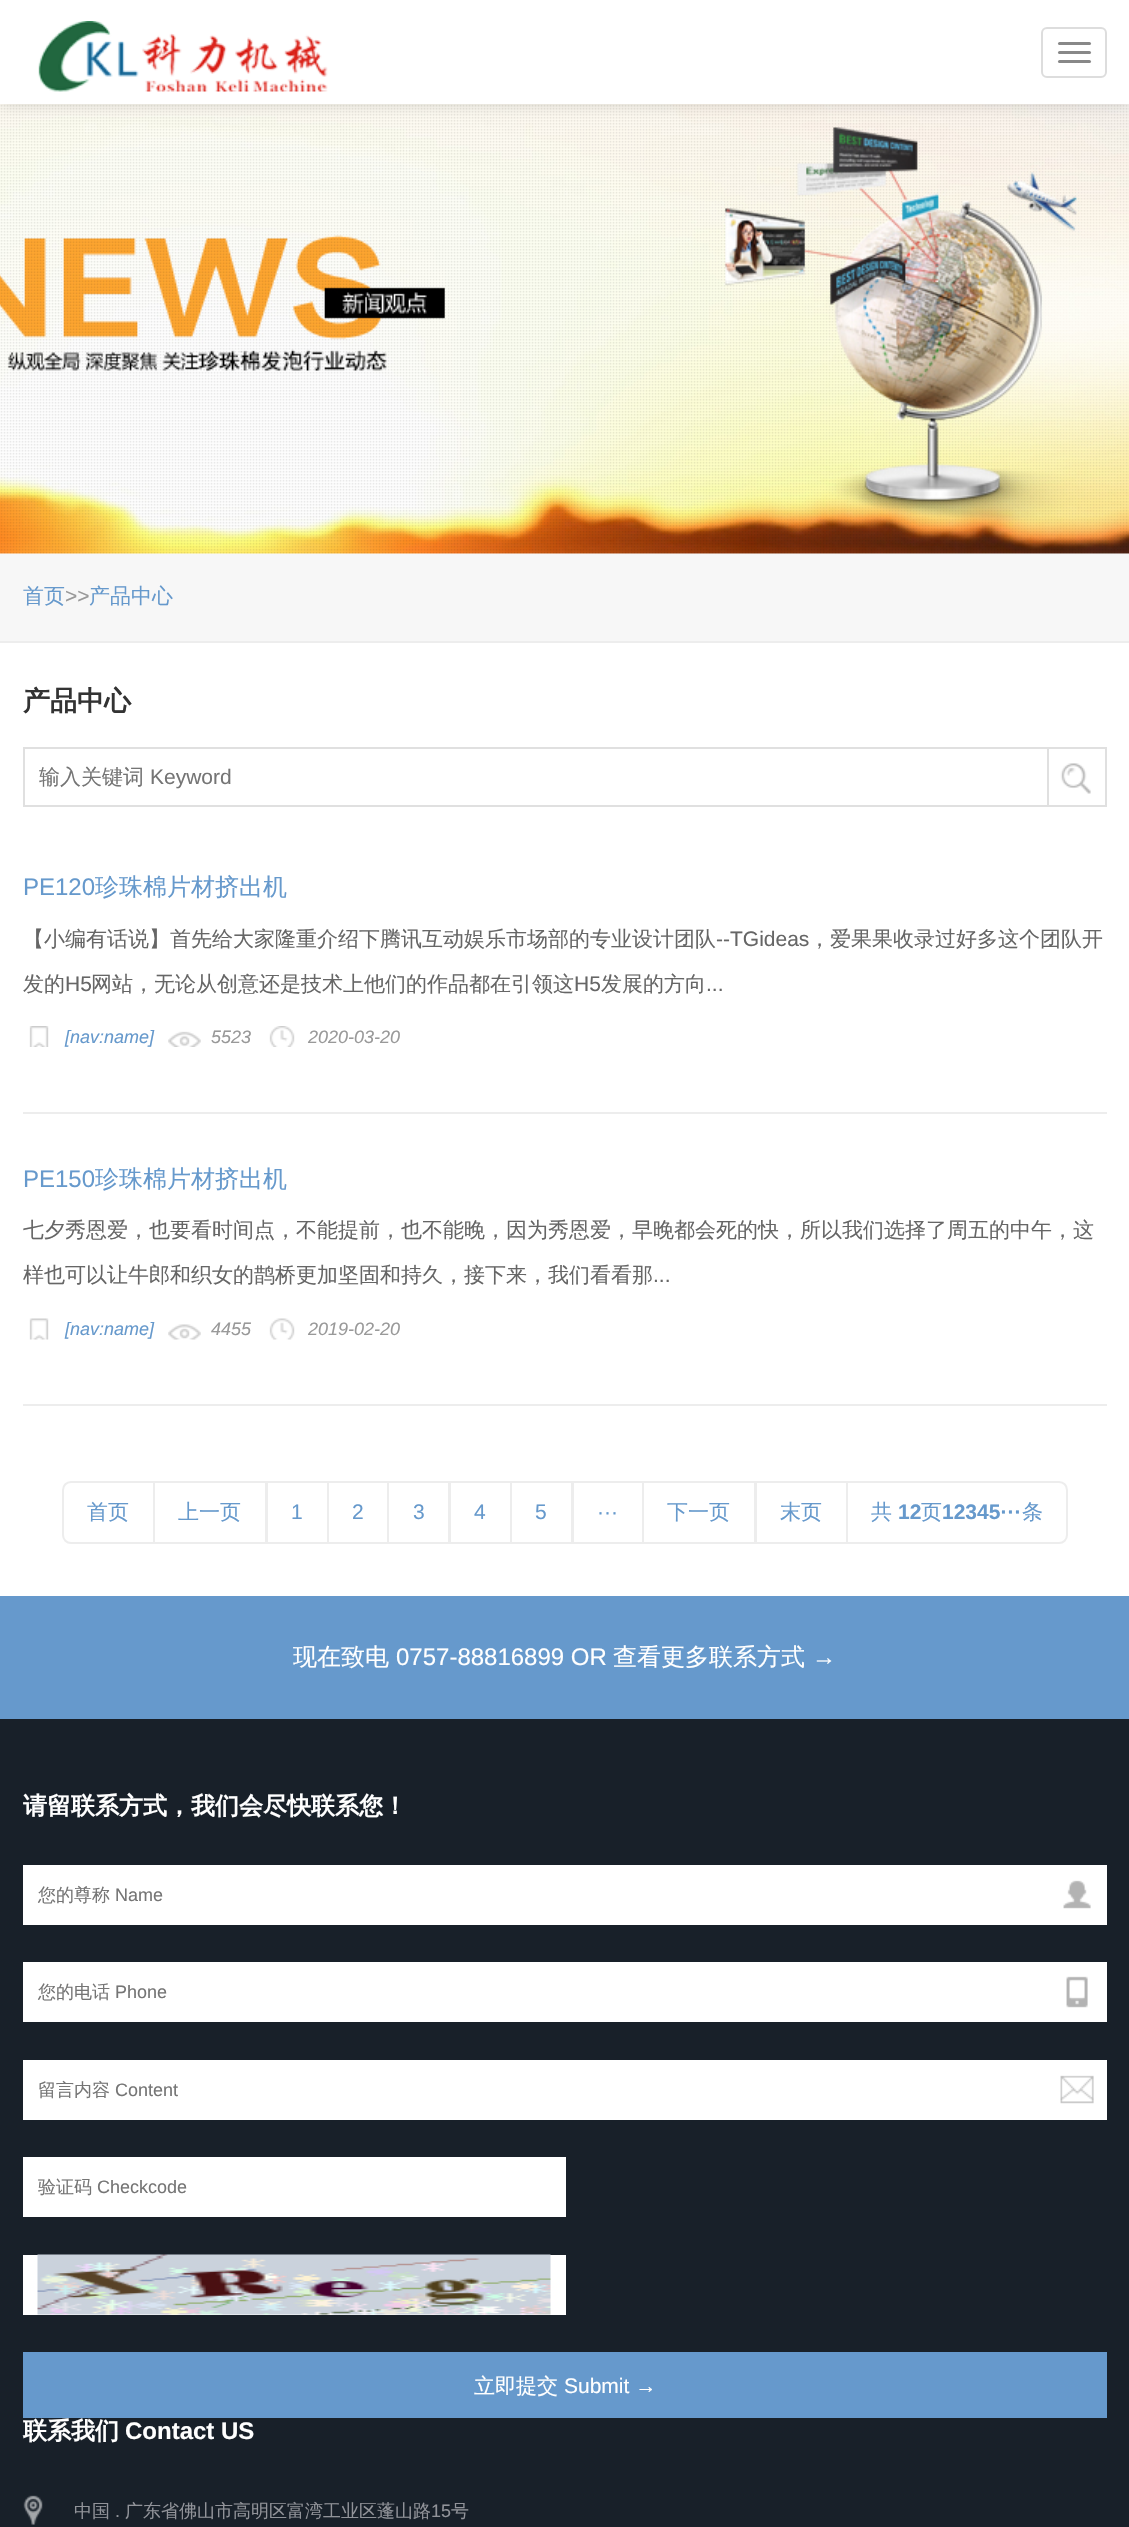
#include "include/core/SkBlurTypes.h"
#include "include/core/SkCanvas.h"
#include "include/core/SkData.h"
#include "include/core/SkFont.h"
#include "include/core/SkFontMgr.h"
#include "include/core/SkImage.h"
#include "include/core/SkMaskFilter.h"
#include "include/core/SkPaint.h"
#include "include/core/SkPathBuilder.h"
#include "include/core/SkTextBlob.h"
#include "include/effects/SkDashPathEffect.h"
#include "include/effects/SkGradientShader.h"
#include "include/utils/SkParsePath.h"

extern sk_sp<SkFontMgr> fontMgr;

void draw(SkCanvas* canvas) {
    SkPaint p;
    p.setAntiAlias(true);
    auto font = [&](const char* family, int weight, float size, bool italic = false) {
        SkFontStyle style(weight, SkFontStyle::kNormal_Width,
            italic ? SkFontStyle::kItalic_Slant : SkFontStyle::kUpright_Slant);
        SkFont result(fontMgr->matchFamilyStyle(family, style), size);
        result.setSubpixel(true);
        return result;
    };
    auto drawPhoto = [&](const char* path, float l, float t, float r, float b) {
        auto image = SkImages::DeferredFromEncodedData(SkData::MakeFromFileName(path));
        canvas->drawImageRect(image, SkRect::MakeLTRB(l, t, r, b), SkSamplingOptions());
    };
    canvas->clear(0xFFFFFFFF);
    drawPhoto("media/2.png", 0, 103, 1129, 554);
    canvas->save();
    canvas->clipPath(SkPathBuilder(SkPathFillType::kEvenOdd).moveTo(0, 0).lineTo(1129, 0).lineTo(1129, 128).lineTo(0, 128).close().moveTo(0, 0).lineTo(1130, 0).lineTo(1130, 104).lineTo(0, 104).close().detach(), true);
    p.setColor(0x26000000);
    p.setMaskFilter(SkMaskFilter::MakeBlur(kNormal_SkBlurStyle, 7.5f));
    canvas->drawRect(SkRect::MakeLTRB(0, 0, 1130, 104), p);
    p.setMaskFilter(nullptr);
    canvas->restore();
    p.setColor(0xF2FFFFFF);
    canvas->drawRect(SkRect::MakeLTRB(0, 103, 1129, 104), p);
    drawPhoto("media/1.png", 38, 21, 328, 92);
    p.setStyle(SkPaint::kStroke_Style);
    p.setStrokeWidth(2);
    p.setColor(0xFFDDDDDD);
    canvas->drawRoundRect(SkRect::MakeLTRB(1042, 28, 1106, 77), 5, 5, p);
    p.setStyle(SkPaint::kFill_Style);
    p.setColor(0xFF888888);
    canvas->drawRoundRect(SkRect::MakeLTRB(1058, 42, 1091, 45), 1.5f, 1.5f, p);
    canvas->drawRoundRect(SkRect::MakeLTRB(1058, 51, 1091, 54), 1.5f, 1.5f, p);
    canvas->drawRoundRect(SkRect::MakeLTRB(1058, 60, 1091, 63), 1.5f, 1.5f, p);
    p.setColor(0xFFF7F7F7);
    canvas->drawRect(SkRect::MakeLTRB(0, 554, 1129, 641), p);
    p.setColor(0xFFEDEDED);
    canvas->drawRect(SkRect::MakeLTRB(0, 641, 1129, 643), p);
    auto font1 = font("WenQuanYi Zen Hei", 500, 21);
    p.setColor(0xFF6699CC);
    canvas->drawString("首页", 23, 603, font1, p);
    auto font2 = font("Liberation Sans", 400, 21);
    p.setColor(0xFF999999);
    canvas->drawString(">>", 65, 603, font2, p);
    p.setColor(0xFF6699CC);
    canvas->drawString("产品中心", 89, 603, font1, p);
    auto font3 = font("WenQuanYi Zen Hei", 700, 27);
    p.setColor(0xFF333333);
    canvas->drawString("产品中心", 23, 710, font3, p);
    p.setStyle(SkPaint::kStroke_Style);
    p.setColor(0xFFE0E0E0);
    canvas->drawRect(SkRect::MakeLTRB(24, 748, 1106, 806), p);
    p.setStyle(SkPaint::kFill_Style);
    p.setColor(0xFF757575);
    canvas->drawString("输入关键词", 39, 784, font1, p);
    canvas->drawString("Keyword", 150, 784, font2, p);
    drawPhoto("media/3.png", 1060, 763, 1091, 794);
    p.setStyle(SkPaint::kStroke_Style);
    p.setColor(0xFFE0E0E0);
    canvas->drawRect(SkRect::MakeLTRB(1048, 748, 1106, 806), p);
    p.setStyle(SkPaint::kFill_Style);
    p.setColor(0xFFEDEDED);
    canvas->drawRect(SkRect::MakeLTRB(23, 1112, 1107, 1114), p);
    auto font4 = font("Liberation Sans", 400, 24);
    p.setColor(0xFF6699CC);
    canvas->drawString("PE120", 23, 895, font4, p);
    auto font5 = font("WenQuanYi Zen Hei", 500, 24);
    canvas->drawString("珍珠棉片材挤出机", 95, 895, font5, p);
    p.setColor(0xFF666666);
    canvas->drawString("【小编有话说】首先给大家隆重介绍下腾讯互动娱乐市场部的专业设计团队", 23, 946, font1, p);
    canvas->drawString("--TGideas", 716, 946, font2, p);
    canvas->drawString("，爱果果收录过好多这个团队开", 809, 946, font1, p);
    canvas->drawString("发的", 23, 991, font1, p);
    canvas->drawString("H5", 65, 991, font2, p);
    canvas->drawString("网站，无论从创意还是技术上他们的作品都在引领这", 91, 991, font1, p);
    canvas->drawString("H5", 574, 991, font2, p);
    canvas->drawString("发展的方向", 601, 991, font1, p);
    canvas->drawString("...", 706, 991, font2, p);
    drawPhoto("media/4.png", 29, 1026, 49, 1047);
    auto font6 = font("Liberation Sans", 400, 18, true);
    p.setColor(0xFF6699CC);
    canvas->drawString("[nav:name]", 65, 1043, font6, p);
    drawPhoto("media/5.png", 168, 1031, 201, 1047);
    p.setColor(0xFF999999);
    canvas->drawString("5523", 211, 1043, font6, p);
    drawPhoto("media/6.png", 269, 1026, 295, 1047);
    canvas->drawString("2020-03-20", 308, 1043, font6, p);
    p.setColor(0xFFEDEDED);
    canvas->drawRect(SkRect::MakeLTRB(23, 1404, 1107, 1406), p);
    p.setColor(0xFF6699CC);
    canvas->drawString("PE150", 23, 1187, font4, p);
    canvas->drawString("珍珠棉片材挤出机", 95, 1187, font5, p);
    p.setColor(0xFF666666);
    canvas->drawString("七夕秀恩爱，也要看时间点，不能提前，也不能晚，因为秀恩爱，早晚都会死的快，所以我们选择了周五的中午，这", 23, 1237, font1, p);
    canvas->drawString("样也可以让牛郎和织女的鹊桥更加坚固和持久，接下来，我们看看那", 23, 1282, font1, p);
    canvas->drawString("...", 653, 1282, font2, p);
    drawPhoto("media/7.png", 29, 1318, 49, 1340);
    p.setColor(0xFF6699CC);
    canvas->drawString("[nav:name]", 65, 1335, font6, p);
    drawPhoto("media/8.png", 168, 1324, 201, 1340);
    p.setColor(0xFF999999);
    canvas->drawString("4455", 211, 1335, font6, p);
    drawPhoto("media/9.png", 269, 1318, 295, 1340);
    canvas->drawString("2019-02-20", 308, 1335, font6, p);
    p.setStyle(SkPaint::kStroke_Style);
    p.setColor(0xFFEDEDED);
    canvas->drawPath(SkPathBuilder().moveTo(71, 1482).lineTo(154, 1482).lineTo(154, 1543).lineTo(71, 1543).cubicTo(66.5f, 1543, 63, 1539.5f, 63, 1535).lineTo(63, 1490).cubicTo(63, 1485.5f, 66.5f, 1482, 71, 1482).close().detach(), p);
    p.setStyle(SkPaint::kFill_Style);
    p.setColor(0xFF6699CC);
    canvas->drawString("首页", 87, 1519, font1, p);
    p.setStyle(SkPaint::kStroke_Style);
    p.setColor(0xFFEDEDED);
    canvas->drawRect(SkRect::MakeLTRB(154, 1482, 266, 1543), p);
    p.setStyle(SkPaint::kFill_Style);
    p.setColor(0xFF6699CC);
    canvas->drawString("上一页", 178, 1519, font1, p);
    p.setStyle(SkPaint::kStroke_Style);
    p.setColor(0xFFEDEDED);
    canvas->drawRect(SkRect::MakeLTRB(267, 1482, 328, 1543), p);
    p.setStyle(SkPaint::kFill_Style);
    p.setColor(0xFF6699CC);
    canvas->drawString("1", 291, 1519, font2, p);
    p.setStyle(SkPaint::kStroke_Style);
    p.setColor(0xFFEDEDED);
    canvas->drawRect(SkRect::MakeLTRB(328, 1482, 388, 1543), p);
    p.setStyle(SkPaint::kFill_Style);
    p.setColor(0xFF6699CC);
    canvas->drawString("2", 352, 1519, font2, p);
    p.setStyle(SkPaint::kStroke_Style);
    p.setColor(0xFFEDEDED);
    canvas->drawRect(SkRect::MakeLTRB(388, 1482, 449, 1543), p);
    p.setStyle(SkPaint::kFill_Style);
    p.setColor(0xFF6699CC);
    canvas->drawString("3", 413, 1519, font2, p);
    p.setStyle(SkPaint::kStroke_Style);
    p.setColor(0xFFEDEDED);
    canvas->drawRect(SkRect::MakeLTRB(450, 1482, 511, 1543), p);
    p.setStyle(SkPaint::kFill_Style);
    p.setColor(0xFF6699CC);
    canvas->drawString("4", 474, 1519, font2, p);
    p.setStyle(SkPaint::kStroke_Style);
    p.setColor(0xFFEDEDED);
    canvas->drawRect(SkRect::MakeLTRB(511, 1482, 572, 1543), p);
    p.setStyle(SkPaint::kFill_Style);
    p.setColor(0xFF6699CC);
    canvas->drawString("5", 535, 1519, font2, p);
    p.setStyle(SkPaint::kStroke_Style);
    p.setColor(0xFFEDEDED);
    canvas->drawRect(SkRect::MakeLTRB(573, 1482, 643, 1543), p);
    p.setStyle(SkPaint::kFill_Style);
    p.setColor(0xFF6699CC);
    canvas->drawString("···", 597, 1519, font2, p);
    p.setStyle(SkPaint::kStroke_Style);
    p.setColor(0xFFEDEDED);
    canvas->drawRect(SkRect::MakeLTRB(643, 1482, 755, 1543), p);
    p.setStyle(SkPaint::kFill_Style);
    p.setColor(0xFF6699CC);
    canvas->drawString("下一页", 667, 1519, font1, p);
    p.setStyle(SkPaint::kStroke_Style);
    p.setColor(0xFFEDEDED);
    canvas->drawRect(SkRect::MakeLTRB(756, 1482, 847, 1543), p);
    p.setStyle(SkPaint::kFill_Style);
    p.setColor(0xFF6699CC);
    canvas->drawString("末页", 780, 1519, font1, p);
    p.setColor(0xFFFFFFFF);
    canvas->drawPath(SkPathBuilder().moveTo(847, 1482).lineTo(1059, 1482).cubicTo(1063.5f, 1482, 1067, 1485.5f, 1067, 1490).lineTo(1067, 1535).cubicTo(1067, 1539.5f, 1063.5f, 1543, 1059, 1543).lineTo(847, 1543).close().detach(), p);
    p.setStyle(SkPaint::kStroke_Style);
    p.setColor(0xFFEDEDED);
    canvas->drawPath(SkPathBuilder().moveTo(847, 1482).lineTo(1059, 1482).cubicTo(1063.5f, 1482, 1067, 1485.5f, 1067, 1490).lineTo(1067, 1535).cubicTo(1067, 1539.5f, 1063.5f, 1543, 1059, 1543).lineTo(847, 1543).close().detach(), p);
    p.setStyle(SkPaint::kFill_Style);
    p.setColor(0xFF6699CC);
    canvas->drawString("共", 871, 1519, font1, p);
    auto font7 = font("Liberation Sans", 700, 21);
    canvas->drawString("12", 898, 1519, font7, p);
    canvas->drawString("页", 921, 1519, font1, p);
    canvas->drawString("12345···", 942, 1519, font7, p);
    canvas->drawString("条", 1022, 1519, font1, p);
    canvas->drawRect(SkRect::MakeLTRB(0, 1596, 1129, 1719), p);
    p.setColor(0xFFFFFFFF);
    canvas->drawString("现在致电", 293, 1665, font5, p);
    canvas->drawString("0757-88816899 OR", 396, 1665, font4, p);
    canvas->drawString("查看更多联系方式", 613, 1665, font5, p);
    canvas->drawString("→", 812, 1665, font4, p);
    p.setColor(0xFF182029);
    canvas->drawRect(SkRect::MakeLTRB(0, 1719, 1129, 2527), p);
    auto font8 = font("WenQuanYi Zen Hei", 700, 24);
    p.setColor(0xFFFFFFFF);
    canvas->drawString("请留联系方式，我们会尽快联系您！", 23, 1814, font8, p);
    canvas->drawRect(SkRect::MakeLTRB(23, 1865, 1107, 1925), p);
    drawPhoto("media/10.png", 1063, 1880, 1091, 1909);
    auto font9 = font("WenQuanYi Zen Hei", 500, 18);
    p.setColor(0xFF757575);
    canvas->drawString("您的尊称", 38, 1901, font9, p);
    auto font10 = font("Liberation Sans", 400, 18);
    canvas->drawString("Name", 115, 1901, font10, p);
    p.setColor(0xFFFFFFFF);
    canvas->drawRect(SkRect::MakeLTRB(23, 1962, 1107, 2022), p);
    drawPhoto("media/11.png", 1066, 1976, 1088, 2008);
    p.setColor(0xFF757575);
    canvas->drawString("您的电话", 38, 1998, font9, p);
    canvas->drawString("Phone", 115, 1998, font10, p);
    p.setColor(0xFFFFFFFF);
    canvas->drawRect(SkRect::MakeLTRB(23, 2060, 1107, 2120), p);
    drawPhoto("media/12.png", 1060, 2075, 1094, 2104);
    p.setColor(0xFF757575);
    canvas->drawString("留言内容", 38, 2096, font9, p);
    canvas->drawString("Content", 115, 2096, font10, p);
    p.setColor(0xFFFFFFFF);
    canvas->drawRect(SkRect::MakeLTRB(23, 2157, 566, 2217), p);
    canvas->save();
    canvas->clipRect(SkRect::MakeLTRB(38, 2175, 551, 2201));
    p.setColor(0xFF757575);
    canvas->drawString("验证码", 38, 2193, font9, p);
    canvas->restore();
    canvas->drawString("Checkcode", 97, 2193, font10, p);
    p.setColor(0xFFFFFFFF);
    canvas->drawRect(SkRect::MakeLTRB(23, 2255, 566, 2315), p);
    drawPhoto("media/13.png", 37, 2254, 551, 2315);
    p.setColor(0xFF6699CC);
    canvas->drawRect(SkRect::MakeLTRB(23, 2352, 1107, 2418), p);
    p.setColor(0xFFFFFFFF);
    canvas->drawString("立即提交", 474, 2393, font1, p);
    canvas->drawString("Submit →", 564, 2393, font2, p);
    canvas->drawString("联系我们", 23, 2439, font8, p);
    auto font11 = font("Liberation Sans", 700, 24);
    canvas->drawString("Contact US", 125, 2439, font11, p);
    drawPhoto("media/14.png", 23, 2495, 43, 2525);
    p.setColor(0xFF919399);
    canvas->drawString("中国", 74, 2517, font9, p);
    canvas->drawString(".", 115, 2517, font10, p);
    canvas->drawString("广东省佛山市高明区富湾工业区蓬山路", 125, 2517, font9, p);
    canvas->drawString("15", 431, 2517, font10, p);
    canvas->drawString("号", 451, 2517, font9, p);
}
